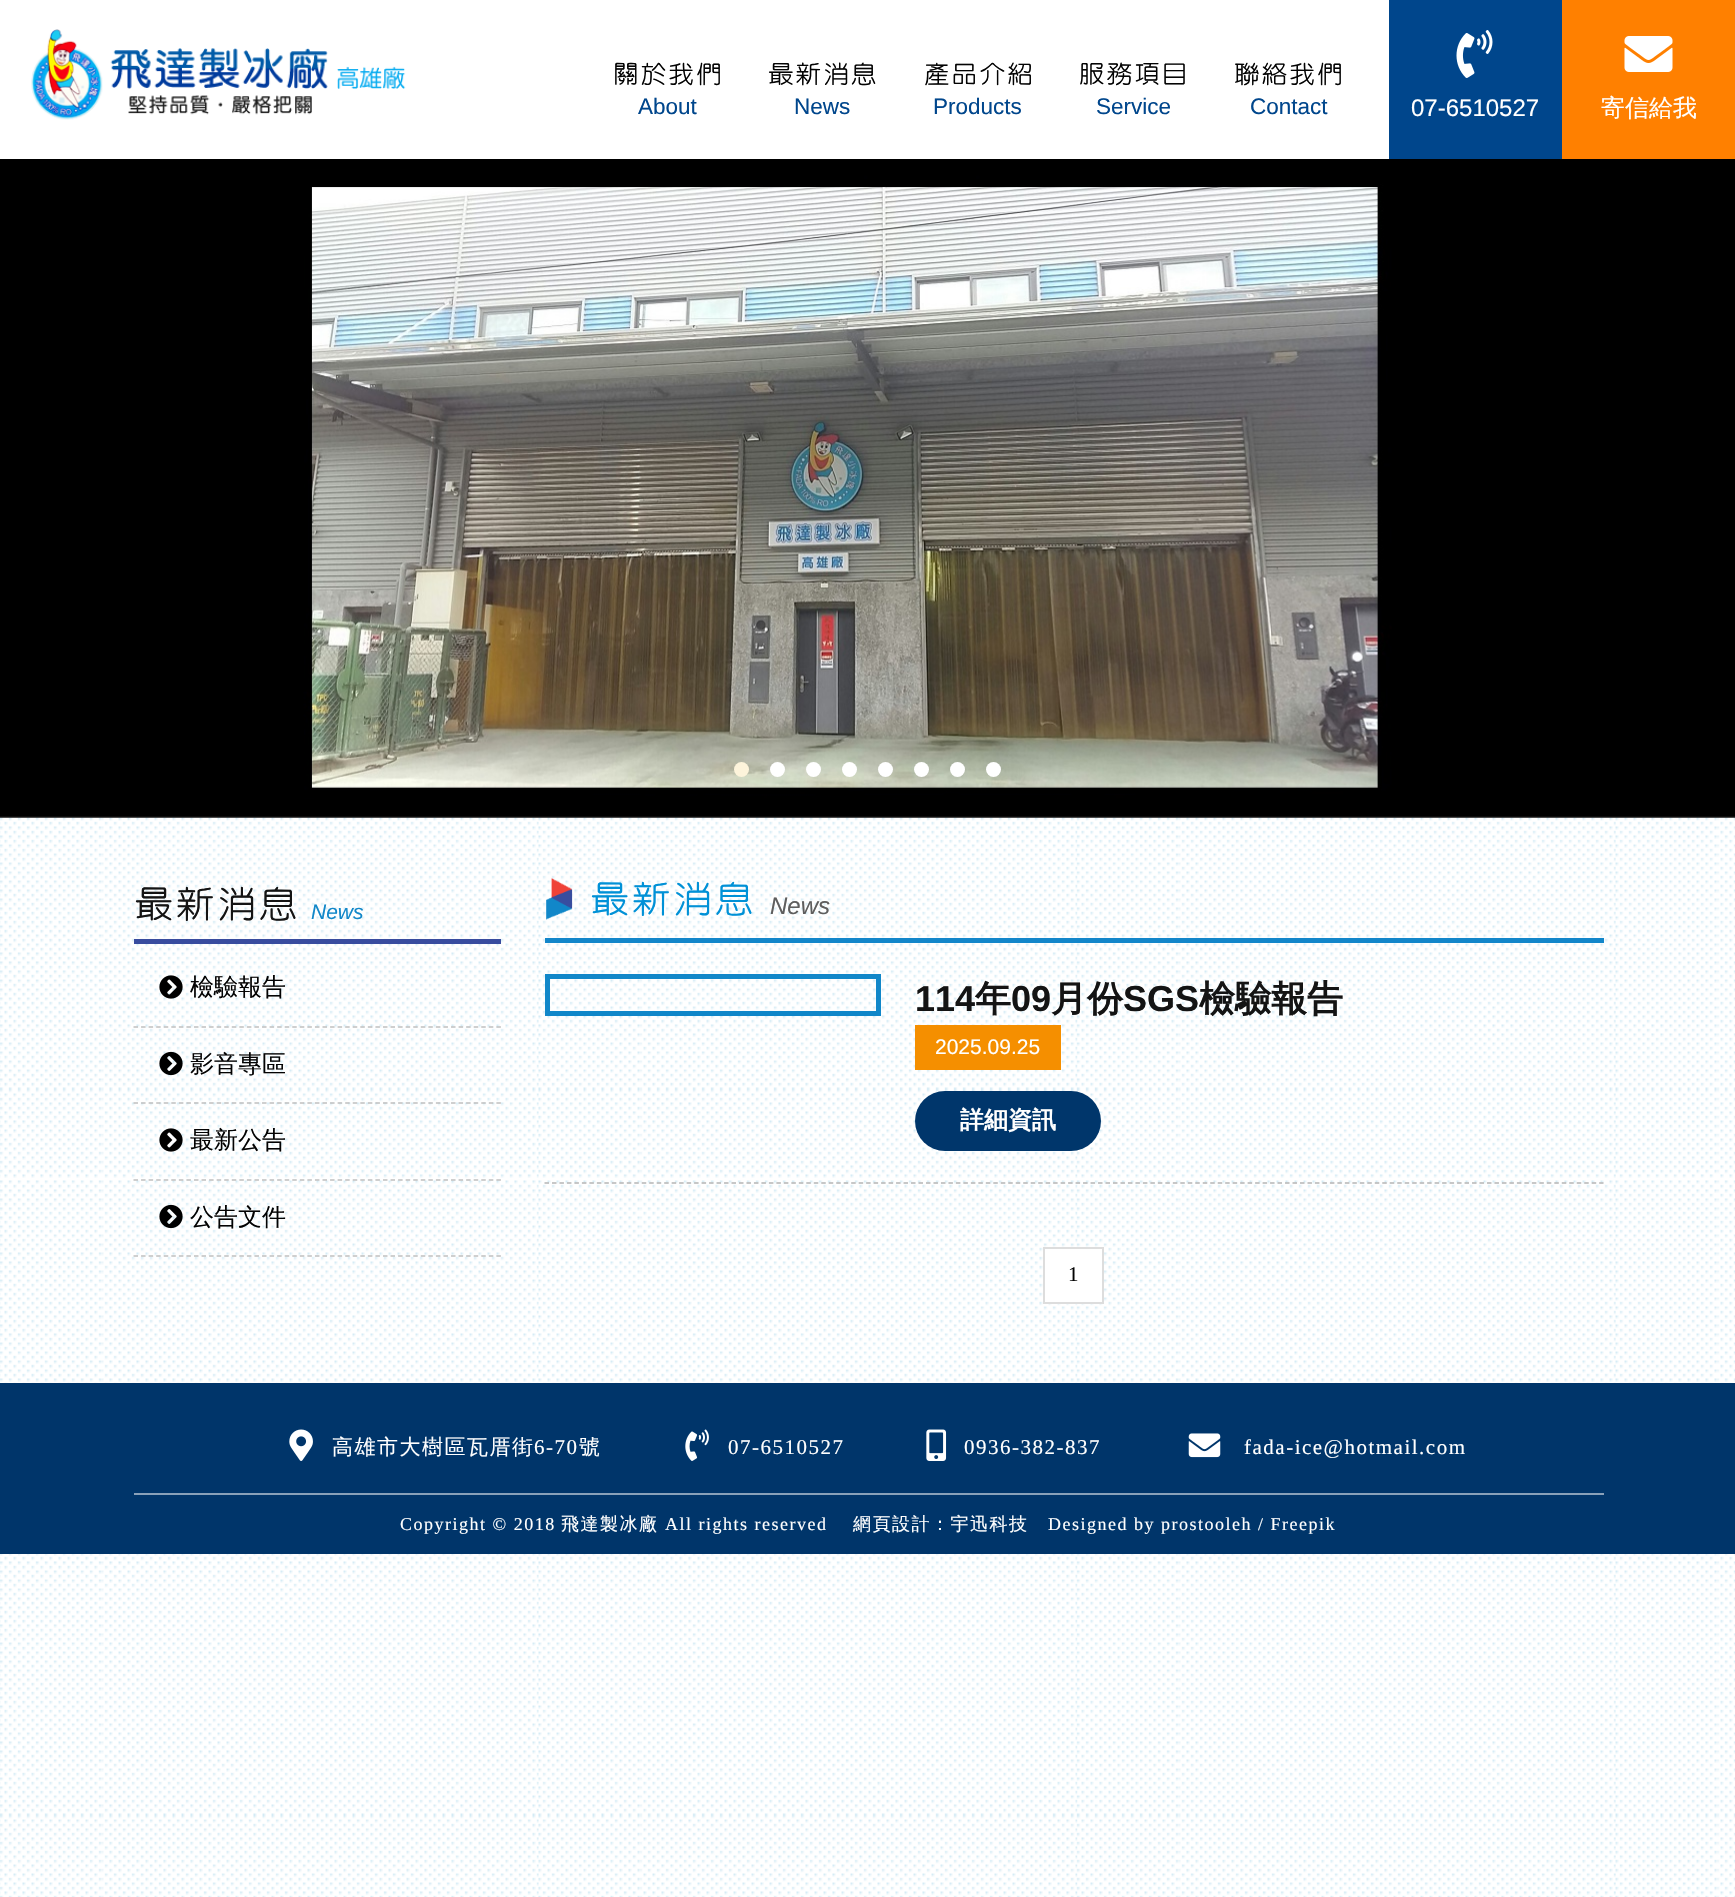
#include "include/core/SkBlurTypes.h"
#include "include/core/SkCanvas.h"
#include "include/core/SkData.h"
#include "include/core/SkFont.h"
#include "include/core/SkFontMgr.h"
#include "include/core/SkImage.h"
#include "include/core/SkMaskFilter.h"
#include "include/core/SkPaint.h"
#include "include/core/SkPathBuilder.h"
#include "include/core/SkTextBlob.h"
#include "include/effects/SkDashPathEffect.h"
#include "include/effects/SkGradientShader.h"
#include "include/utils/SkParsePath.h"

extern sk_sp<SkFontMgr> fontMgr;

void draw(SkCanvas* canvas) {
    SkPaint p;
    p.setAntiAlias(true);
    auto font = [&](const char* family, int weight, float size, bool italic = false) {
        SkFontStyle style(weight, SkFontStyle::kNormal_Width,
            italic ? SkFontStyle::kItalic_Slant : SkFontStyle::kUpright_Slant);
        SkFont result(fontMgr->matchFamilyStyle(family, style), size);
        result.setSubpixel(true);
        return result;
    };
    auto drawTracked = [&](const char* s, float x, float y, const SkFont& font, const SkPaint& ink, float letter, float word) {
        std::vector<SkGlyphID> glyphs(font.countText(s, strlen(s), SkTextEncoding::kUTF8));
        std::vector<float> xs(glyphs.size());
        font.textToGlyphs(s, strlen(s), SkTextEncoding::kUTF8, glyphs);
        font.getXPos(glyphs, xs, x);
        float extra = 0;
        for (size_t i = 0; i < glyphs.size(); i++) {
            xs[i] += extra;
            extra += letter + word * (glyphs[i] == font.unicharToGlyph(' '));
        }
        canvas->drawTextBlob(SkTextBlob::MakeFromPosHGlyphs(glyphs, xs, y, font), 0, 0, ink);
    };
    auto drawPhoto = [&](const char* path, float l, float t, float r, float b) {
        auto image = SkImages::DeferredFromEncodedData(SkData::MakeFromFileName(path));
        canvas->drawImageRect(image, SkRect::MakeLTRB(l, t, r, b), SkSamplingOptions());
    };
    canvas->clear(0xFFFFFFFF);
    drawPhoto("media/1.png", 0, 816, 1735, 1897);
    drawPhoto("media/2.png", 31, 29, 406, 120);
    auto font1 = font("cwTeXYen", 500, 30);
    p.setColor(0xFF030303);
    canvas->drawString("關於我們", 612, 84, font1, p);
    auto font2 = font("Liberation Sans", 400, 22.5f);
    p.setColor(0xFF00468C);
    canvas->drawString("About", 638, 114, font2, p);
    p.setColor(0xFF030303);
    canvas->drawString("最新消息", 767, 84, font1, p);
    p.setColor(0xFF00468C);
    canvas->drawString("News", 794, 114, font2, p);
    p.setColor(0xFF030303);
    canvas->drawString("產品介紹", 923, 84, font1, p);
    p.setColor(0xFF00468C);
    canvas->drawString("Products", 933, 114, font2, p);
    p.setColor(0xFF030303);
    canvas->drawString("服務項目", 1078, 84, font1, p);
    p.setColor(0xFF00468C);
    canvas->drawString("Service", 1096, 114, font2, p);
    p.setColor(0xFF030303);
    canvas->drawString("聯絡我們", 1233, 84, font1, p);
    p.setColor(0xFF00468C);
    canvas->drawString("Contact", 1250, 114, font2, p);
    canvas->drawRect(SkRect::MakeLTRB(1389, 0, 1562, 159), p);
    drawPhoto("media/3.png", 1456, 30, 1493, 78);
    auto font3 = font("Liberation Sans", 400, 24);
    p.setColor(0xFFFFFFFF);
    canvas->drawString("07-6510527", 1411, 116, font3, p);
    p.setColor(0xFFFF8000);
    canvas->drawRect(SkRect::MakeLTRB(1562, 0, 1735, 159), p);
    drawPhoto("media/4.png", 1624, 36, 1673, 72);
    auto font4 = font("WenQuanYi Zen Hei", 500, 24);
    p.setColor(0xFFFFFFFF);
    canvas->drawString("寄信給我", 1601, 116, font4, p);
    drawPhoto("media/5.png", 0, 159, 1735, 818);
    p.setColor(0xFFFDF4DB);
    canvas->drawCircle(741.5f, 769.5f, 7.5f, p);
    p.setColor(0xFFFFFFFF);
    canvas->drawCircle(777.5f, 769.5f, 7.5f, p);
    canvas->drawCircle(813.5f, 769.5f, 7.5f, p);
    canvas->drawCircle(849.5f, 769.5f, 7.5f, p);
    canvas->drawCircle(885.5f, 769.5f, 7.5f, p);
    canvas->drawCircle(921.5f, 769.5f, 7.5f, p);
    canvas->drawCircle(957.5f, 769.5f, 7.5f, p);
    canvas->drawCircle(993.5f, 769.5f, 7.5f, p);
    auto font5 = font("cwTeXYen", 500, 45);
    p.setColor(0xFF141414);
    canvas->drawString("最新消息", 133, 919, font5, p);
    auto font6 = font("Liberation Sans", 400, 21, true);
    p.setColor(0xFF1187C9);
    canvas->drawString("News", 311, 919, font6, p);
    p.setColor(0xFF384C9F);
    canvas->drawRect(SkRect::MakeLTRB(134, 939, 501, 944), p);
    p.setStyle(SkPaint::kStroke_Style);
    p.setStrokeWidth(1.5f);
    p.setColor(0xFFC0C0C0);
    p.setPathEffect(SkDashPathEffect::Make({{4.5f, 3.06f}}, 0));
    canvas->drawPath(SkPathBuilder().moveTo(133.5f, 1027).lineTo(501, 1027).detach(), p);
    p.setPathEffect(nullptr);
    drawPhoto("media/6.png", 159, 975, 183, 999);
    p.setStyle(SkPaint::kFill_Style);
    p.setColor(0xFF030303);
    canvas->drawString("檢驗報告", 190, 995, font4, p);
    p.setStyle(SkPaint::kStroke_Style);
    p.setColor(0xFFC0C0C0);
    p.setPathEffect(SkDashPathEffect::Make({{4.5f, 3.06f}}, 0));
    canvas->drawPath(SkPathBuilder().moveTo(133.5f, 1103).lineTo(501, 1103).detach(), p);
    p.setPathEffect(nullptr);
    drawPhoto("media/7.png", 159, 1051, 183, 1076);
    p.setStyle(SkPaint::kFill_Style);
    p.setColor(0xFF030303);
    canvas->drawString("影音專區", 190, 1072, font4, p);
    p.setStyle(SkPaint::kStroke_Style);
    p.setColor(0xFFC0C0C0);
    p.setPathEffect(SkDashPathEffect::Make({{4.5f, 3.06f}}, 0));
    canvas->drawPath(SkPathBuilder().moveTo(133.5f, 1180).lineTo(501, 1180).detach(), p);
    p.setPathEffect(nullptr);
    drawPhoto("media/8.png", 159, 1128, 183, 1152);
    p.setStyle(SkPaint::kFill_Style);
    p.setColor(0xFF030303);
    canvas->drawString("最新公告", 190, 1148, font4, p);
    p.setStyle(SkPaint::kStroke_Style);
    p.setColor(0xFFC0C0C0);
    p.setPathEffect(SkDashPathEffect::Make({{4.5f, 3.06f}}, 0));
    canvas->drawPath(SkPathBuilder().moveTo(133.5f, 1256).lineTo(501, 1256).detach(), p);
    p.setPathEffect(nullptr);
    drawPhoto("media/9.png", 159, 1204, 183, 1229);
    p.setStyle(SkPaint::kFill_Style);
    p.setColor(0xFF030303);
    canvas->drawString("公告文件", 190, 1225, font4, p);
    p.setColor(0xFF1286CA);
    canvas->drawRect(SkRect::MakeLTRB(545, 938, 1604, 943), p);
    drawPhoto("media/10.png", 546, 877, 573, 920);
    p.setColor(0xFF0091D7);
    canvas->drawString("最新消息", 589, 914, font5, p);
    auto font7 = font("Liberation Sans", 400, 24, true);
    p.setColor(0xFF5E5E5E);
    canvas->drawString("News", 770, 914, font7, p);
    p.setStyle(SkPaint::kStroke_Style);
    p.setColor(0xFFB5B5B5);
    p.setPathEffect(SkDashPathEffect::Make({{4.5f, 2.98f}}, 0));
    canvas->drawPath(SkPathBuilder().moveTo(544.5f, 1183).lineTo(1603.5f, 1183).detach(), p);
    p.setPathEffect(nullptr);
    p.setStrokeWidth(5);
    p.setColor(0xFF1187C9);
    canvas->drawRect(SkRect::MakeLTRB(547.5f, 976.5f, 878.5f, 1013.5f), p);
    auto font8 = font("Liberation Sans", 700, 36);
    p.setStyle(SkPaint::kFill_Style);
    p.setColor(0xFF141414);
    canvas->drawString("114", 915, 1011, font8, p);
    auto font9 = font("WenQuanYi Zen Hei", 700, 36);
    canvas->drawString("年", 975, 1011, font9, p);
    canvas->drawString("09", 1011, 1011, font8, p);
    canvas->drawString("月份", 1051, 1011, font9, p);
    canvas->drawString("SGS", 1123, 1011, font8, p);
    canvas->drawString("檢驗報告", 1199, 1011, font9, p);
    p.setColor(0xFFF58F00);
    canvas->drawRect(SkRect::MakeLTRB(915, 1025, 1061, 1070), p);
    auto font10 = font("Liberation Sans", 400, 21);
    p.setColor(0xFFFFFFFF);
    canvas->drawString("2025.09.25", 935, 1054, font10, p);
    p.setColor(0xFF00366B);
    canvas->drawRoundRect(SkRect::MakeLTRB(915, 1091, 1101, 1151), 30, 30, p);
    auto font11 = font("WenQuanYi Zen Hei", 700, 24);
    p.setColor(0xFFFFFFFF);
    canvas->drawString("詳細資訊", 960, 1128, font11, p);
    canvas->drawRect(SkRect::MakeLTRB(1044, 1248, 1103, 1303), p);
    p.setStyle(SkPaint::kStroke_Style);
    p.setStrokeWidth(2);
    p.setColor(0xFFDDDDDD);
    canvas->drawRect(SkRect::MakeLTRB(1044, 1248, 1103, 1303), p);
    auto font12 = font("Liberation Serif", 400, 21);
    p.setStyle(SkPaint::kFill_Style);
    p.setColor(0xFF030303);
    canvas->drawString("1", 1068, 1281, font12, p);
    p.setColor(0xFF00356A);
    canvas->drawRect(SkRect::MakeLTRB(0, 1383, 1735, 1554), p);
    drawPhoto("media/11.png", 289, 1429, 313, 1461);
    auto font13 = font("WenQuanYi Zen Hei", 500, 21);
    p.setColor(0xFFFFFFFF);
    drawTracked("高雄市大樹區瓦厝街", 332, 1454, font13, p, 1.5f, 0);
    drawTracked("6-70", 534, 1454, font12, p, 1.5f, 0);
    drawTracked("號", 579, 1454, font13, p, 1.5f, 0);
    drawPhoto("media/12.png", 685, 1429, 709, 1461);
    drawTracked("07-6510527", 728, 1454, font12, p, 1.5f, 0);
    drawPhoto("media/13.png", 926, 1429, 947, 1461);
    drawTracked("0936-382-837", 964, 1454, font12, p, 1.5f, 0);
    drawPhoto("media/14.png", 1188, 1433, 1221, 1458);
    drawTracked("fada-ice@hotmail.com", 1244, 1454, font12, p, 1.5f, 0);
    p.setColor(0xFF8AA1B9);
    canvas->drawRect(SkRect::MakeLTRB(134, 1493, 1604, 1495), p);
    auto font14 = font("Liberation Serif", 400, 18);
    p.setColor(0xFFFFFFFF);
    drawTracked("Copyright © 2018", 400, 1530, font14, p, 1.5f, 0);
    auto font15 = font("WenQuanYi Zen Hei", 500, 18);
    drawTracked("飛達製冰廠", 561, 1530, font15, p, 1.5f, 0);
    drawTracked("All rights reserved", 665, 1530, font14, p, 1.5f, 0);
    drawTracked("網頁設計：宇迅科技", 853, 1530, font15, p, 1.5f, 0);
    drawTracked("Designed by prostooleh / Freepik", 1048, 1530, font14, p, 1.5f, 0);
}
